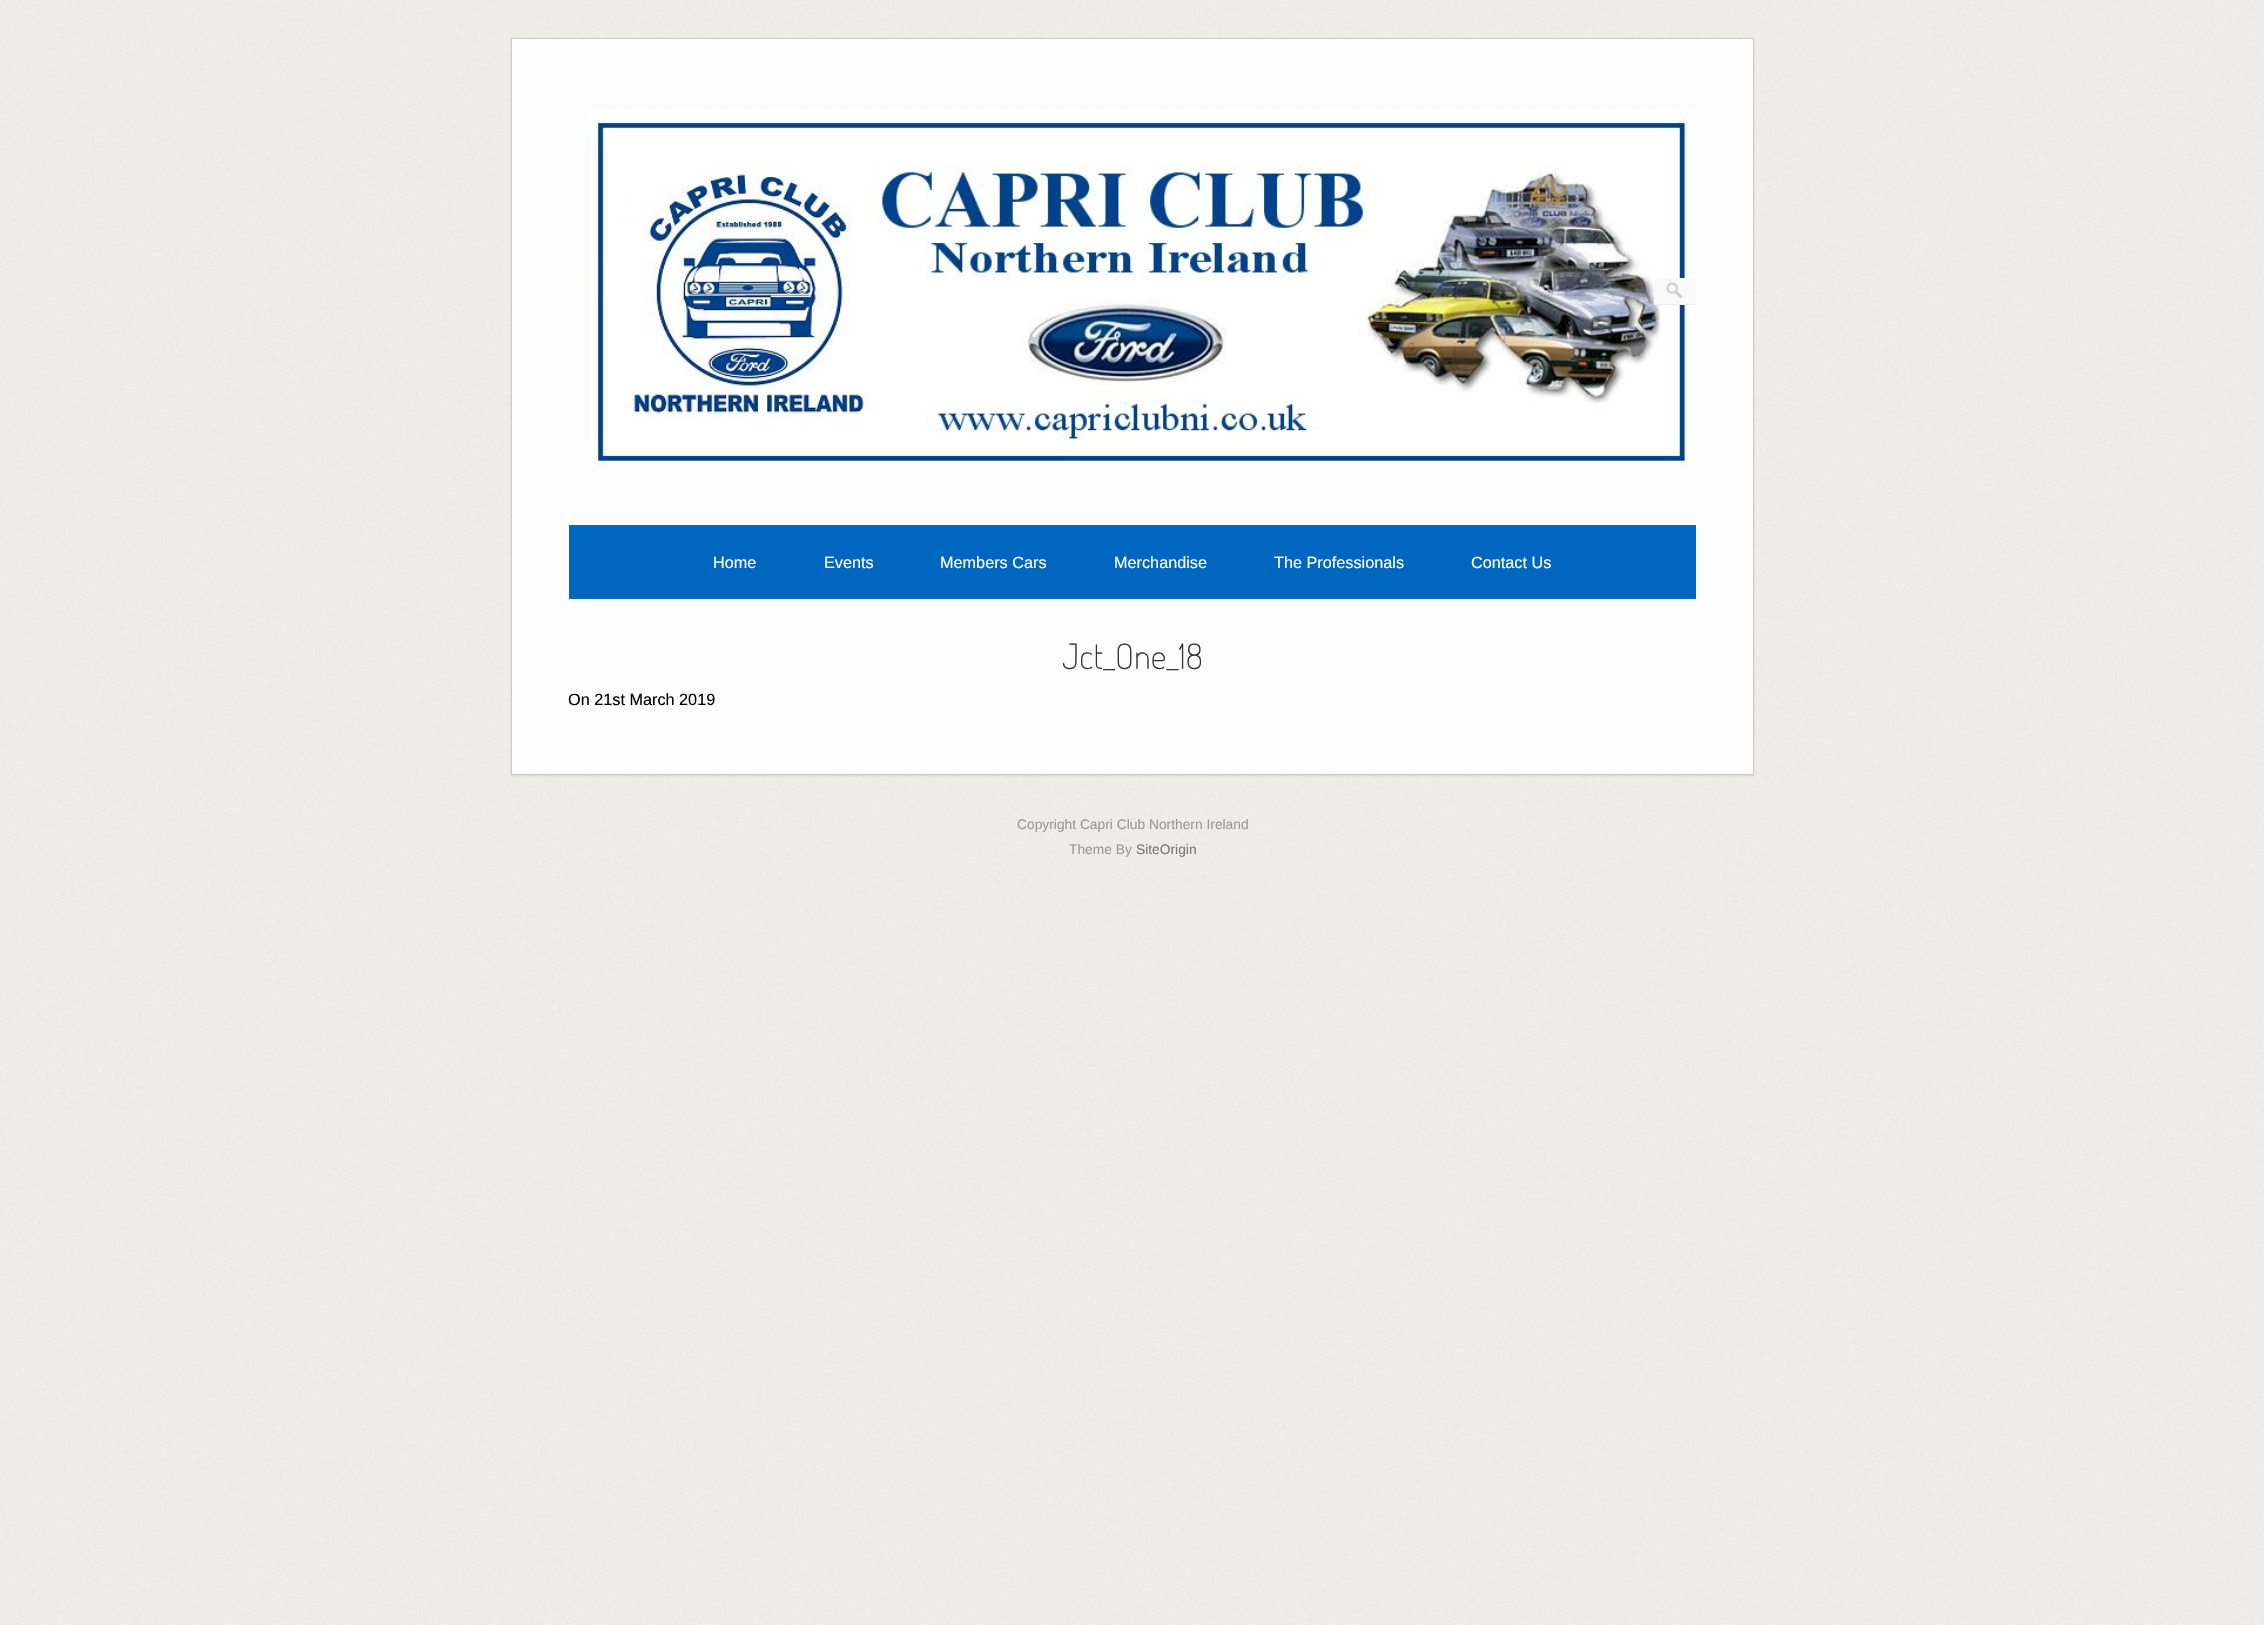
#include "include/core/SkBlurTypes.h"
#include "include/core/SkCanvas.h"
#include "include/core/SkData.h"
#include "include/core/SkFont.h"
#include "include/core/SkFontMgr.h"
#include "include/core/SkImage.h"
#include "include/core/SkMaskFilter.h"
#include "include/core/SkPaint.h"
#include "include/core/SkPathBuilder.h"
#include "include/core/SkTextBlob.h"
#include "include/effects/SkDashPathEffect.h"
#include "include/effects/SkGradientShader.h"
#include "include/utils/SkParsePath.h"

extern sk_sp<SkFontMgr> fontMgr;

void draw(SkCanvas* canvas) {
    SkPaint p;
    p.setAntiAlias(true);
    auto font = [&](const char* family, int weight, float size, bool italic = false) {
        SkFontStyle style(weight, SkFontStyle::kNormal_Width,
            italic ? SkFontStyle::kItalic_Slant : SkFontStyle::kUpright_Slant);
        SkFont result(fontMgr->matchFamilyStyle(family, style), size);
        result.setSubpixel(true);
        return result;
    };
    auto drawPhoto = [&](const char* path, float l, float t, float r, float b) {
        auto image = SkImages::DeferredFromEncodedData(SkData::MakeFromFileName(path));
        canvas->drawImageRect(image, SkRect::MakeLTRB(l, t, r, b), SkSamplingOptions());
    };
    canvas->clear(0xFFFFFFFF);
    drawPhoto("media/1.png", 0, 0, 2264, 1625);
    p.setColor(0x1A000000);
    p.setMaskFilter(SkMaskFilter::MakeBlur(kNormal_SkBlurStyle, 1));
    canvas->drawRect(SkRect::MakeLTRB(511, 39, 1754, 776), p);
    p.setMaskFilter(nullptr);
    p.setColor(0xFFFDFDFD);
    canvas->drawRect(SkRect::MakeLTRB(511.5f, 38.5f, 1753.5f, 774.5f), p);
    p.setStyle(SkPaint::kStroke_Style);
    p.setStrokeWidth(1);
    p.setColor(0xFFCBC9C7);
    canvas->drawRect(SkRect::MakeLTRB(511.5f, 38.5f, 1753.5f, 774.5f), p);
    drawPhoto("media/2.png", 588, 110, 1697, 468);
    p.setStyle(SkPaint::kFill_Style);
    p.setColor(0xFFF9F9F9);
    canvas->drawRect(SkRect::MakeLTRB(1654, 278, 1696, 304), p);
    drawPhoto("media/3.png", 1666, 282, 1683, 299);
    {
        const struct { float l, t, r, b; SkColor color; } items[] = {
            {1654, 304, 1696, 305, 0xFFEEEEEE},
            {569, 526, 1696, 598, 0xFF0066BF},
            {569, 525, 1696, 526, 0xFF096ABF},
            {569, 598, 1696, 599, 0xFF096ABF},
        };
        for (auto [l, t, r, b, color] : items) {
            p.setColor(color);
            canvas->drawRect(SkRect::MakeLTRB(l, t, r, b), p);
        }
    }
    auto font1 = font("Liberation Sans", 400, 16.25f);
    p.setColor(0xFFFFFFFF);
    {
        const struct { const char* s; float x, y; } items[] = {
            {"Home", 713, 568},
            {"Events", 824, 568},
            {"Members Cars", 940, 568},
            {"Merchandise", 1114, 568},
            {"The Professionals", 1274, 568},
            {"Contact Us", 1471, 568},
        };
        for (auto [s, x, y] : items) {
            canvas->drawString(s, x, y, font1, p);
        }
    }
    auto font2 = font("Dosis", 200, 35);
    p.setColor(0xFF333333);
    canvas->drawString("Jct_One_18", 1062, 669, font2, p);
    p.setColor(0xFF000000);
    canvas->drawString("On 21st March 2019", 568, 705, font1, p);
    auto font3 = font("Liberation Sans", 400, 13.8f);
    p.setColor(0xFF999999);
    canvas->drawString("Copyright Capri Club Northern Ireland", 1017, 829, font3, p);
    canvas->drawString("Theme By", 1069, 854, font3, p);
    p.setColor(0xFF777777);
    canvas->drawString("SiteOrigin", 1136, 854, font3, p);
}
